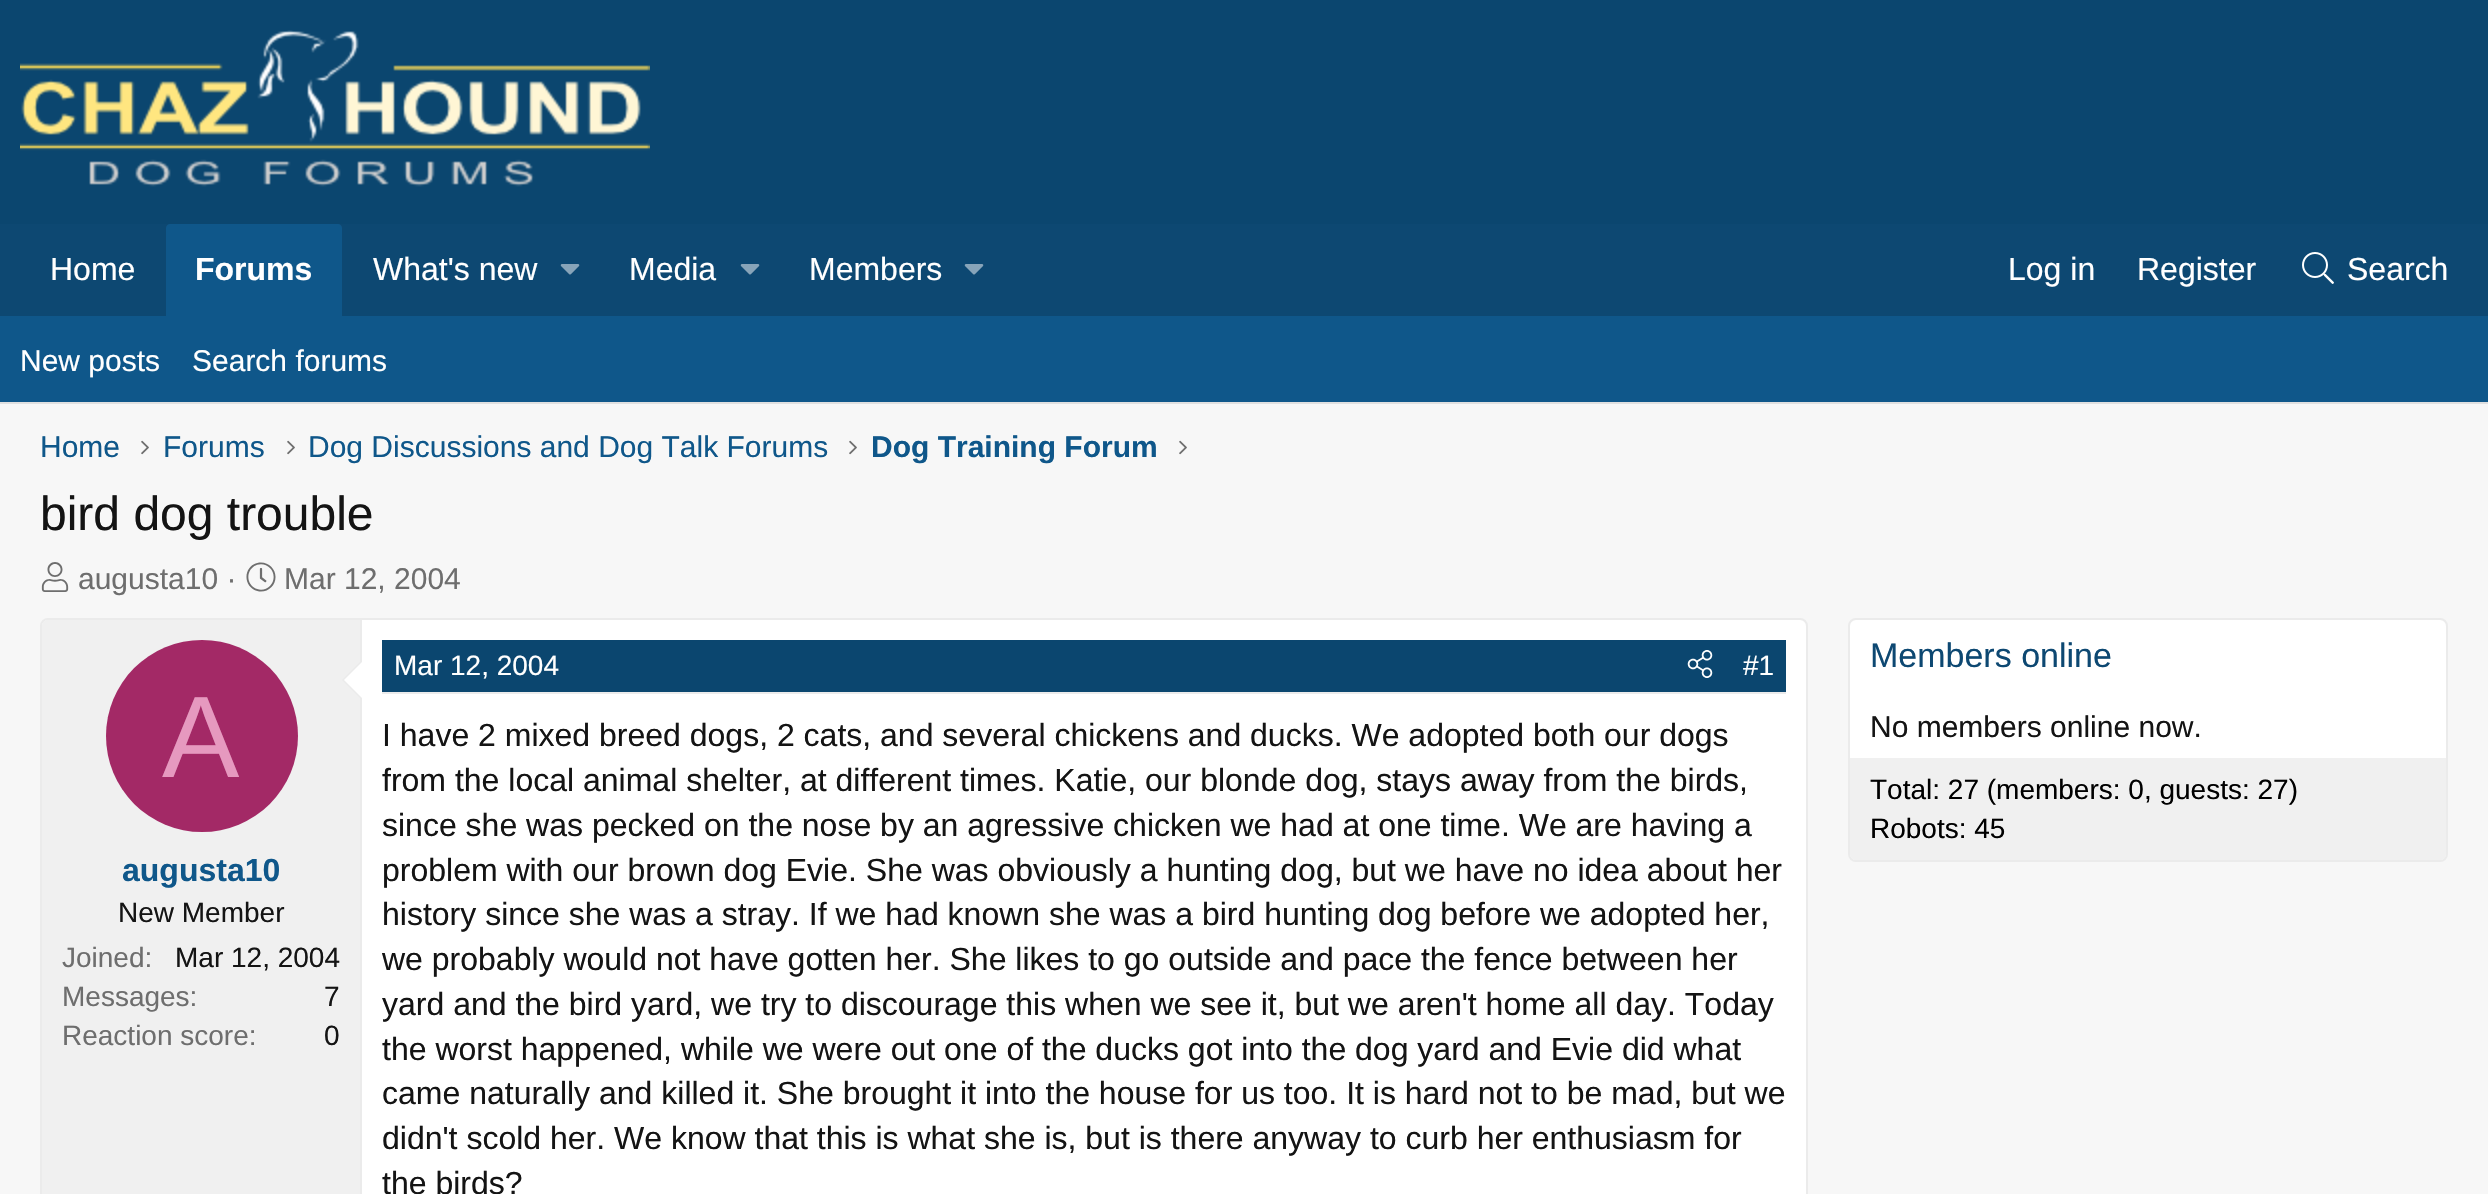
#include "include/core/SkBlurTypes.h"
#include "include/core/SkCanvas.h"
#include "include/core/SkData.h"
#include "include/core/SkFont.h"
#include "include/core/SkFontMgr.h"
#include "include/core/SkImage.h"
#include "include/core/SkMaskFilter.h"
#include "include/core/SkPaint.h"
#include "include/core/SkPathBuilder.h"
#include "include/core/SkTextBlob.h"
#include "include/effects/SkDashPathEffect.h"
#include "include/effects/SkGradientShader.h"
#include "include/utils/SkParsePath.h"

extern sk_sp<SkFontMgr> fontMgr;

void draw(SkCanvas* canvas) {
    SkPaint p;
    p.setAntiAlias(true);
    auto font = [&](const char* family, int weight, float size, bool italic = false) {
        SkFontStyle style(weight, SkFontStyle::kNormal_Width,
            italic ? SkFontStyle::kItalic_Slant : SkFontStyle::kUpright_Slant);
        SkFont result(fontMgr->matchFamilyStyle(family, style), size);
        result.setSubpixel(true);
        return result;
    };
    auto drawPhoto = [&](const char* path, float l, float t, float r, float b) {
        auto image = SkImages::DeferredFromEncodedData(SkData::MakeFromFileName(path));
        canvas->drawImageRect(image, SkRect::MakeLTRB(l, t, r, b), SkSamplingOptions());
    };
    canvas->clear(0xFF0B466F);
    drawPhoto("media/1.png", 20, 30, 650, 187);
    p.setColor(0xFF0D4872);
    canvas->drawRect(SkRect::MakeLTRB(0, 224, 2488, 316), p);
    auto font1 = font("Liberation Sans", 400, 32);
    p.setColor(0xFFFFFFFF);
    canvas->drawString("Home", 50, 280, font1, p);
    p.setColor(0xFF0F578A);
    canvas->drawPath(SkPathBuilder().moveTo(170, 224).lineTo(338, 224).cubicTo(340, 224, 342, 226, 342, 228).lineTo(342, 316).lineTo(166, 316).lineTo(166, 228).cubicTo(166, 226, 168, 224, 170, 224).close().detach(), p);
    auto font2 = font("Liberation Sans", 700, 32);
    p.setColor(0xFFFFFFFF);
    canvas->drawString("Forums", 195, 280, font2, p);
    canvas->drawString("What's new", 373, 280, font1, p);
    drawPhoto("media/2.png", 560, 264, 580, 275);
    canvas->drawString("Media", 629, 280, font1, p);
    drawPhoto("media/2.png", 740, 264, 760, 275);
    canvas->drawString("Members", 809, 280, font1, p);
    drawPhoto("media/2.png", 964, 264, 984, 275);
    canvas->drawString("Log in", 2008, 280, font1, p);
    canvas->drawString("Register", 2137, 280, font1, p);
    drawPhoto("media/3.png", 2302, 252, 2334, 284);
    canvas->drawString("Search", 2347, 280, font1, p);
    p.setColor(0xFF0F578A);
    canvas->drawRect(SkRect::MakeLTRB(0, 316, 2488, 402), p);
    p.setColor(0xFFE0E0E0);
    canvas->drawRect(SkRect::MakeLTRB(0, 402, 2488, 404), p);
    auto font3 = font("Liberation Sans", 400, 30);
    p.setColor(0xFFFFFFFF);
    canvas->drawString("New posts", 20, 371, font3, p);
    canvas->drawString("Search forums", 192, 371, font3, p);
    p.setColor(0xFFF7F7F7);
    canvas->drawRect(SkRect::MakeLTRB(0, 404, 2488, 1194), p);
    p.setColor(0xFF0F578A);
    canvas->drawString("Home", 40, 457, font3, p);
    drawPhoto("media/4.png", 141, 440, 149, 455);
    canvas->drawString("Forums", 163, 457, font3, p);
    drawPhoto("media/4.png", 287, 440, 295, 455);
    canvas->drawString("Dog Discussions and Dog Talk Forums", 308, 457, font3, p);
    drawPhoto("media/4.png", 849, 440, 857, 455);
    auto font4 = font("Liberation Sans", 700, 30);
    canvas->drawString("Dog Training Forum", 871, 457, font4, p);
    drawPhoto("media/4.png", 1179, 440, 1187, 455);
    auto font5 = font("Liberation Sans", 400, 48);
    p.setColor(0xFF141414);
    canvas->drawString("bird dog trouble", 40, 530, font5, p);
    drawPhoto("media/5.png", 41, 562, 69, 592);
    p.setColor(0xFF6E6E6E);
    canvas->drawString("augusta10 ·", 78, 589, font3, p);
    drawPhoto("media/6.png", 246, 562, 276, 592);
    canvas->drawString("Mar 12, 2004", 284, 589, font3, p);
    p.setColor(0xFFFFFFFF);
    canvas->drawRoundRect(SkRect::MakeLTRB(41, 619, 1807, 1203), 7, 7, p);
    p.setStyle(SkPaint::kStroke_Style);
    p.setStrokeWidth(2);
    p.setColor(0xFFEBEBEB);
    canvas->drawRoundRect(SkRect::MakeLTRB(41, 619, 1807, 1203), 7, 7, p);
    p.setStyle(SkPaint::kFill_Style);
    p.setColor(0xFFF0F0F0);
    canvas->drawPath(SkPathBuilder().moveTo(48, 620).lineTo(362, 620).lineTo(362, 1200).lineTo(48, 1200).cubicTo(44.5f, 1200, 42, 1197.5f, 42, 1194).lineTo(42, 626).cubicTo(42, 622.5f, 44.5f, 620, 48, 620).close().detach(), p);
    p.setColor(0xFFEBEBEB);
    canvas->drawRect(SkRect::MakeLTRB(360, 620, 362, 1194), p);
    canvas->drawPath(SkPathBuilder().moveTo(362, 660).lineTo(362, 700).lineTo(342, 680).close().detach(), p);
    p.setColor(0xFFFFFFFF);
    canvas->drawPath(SkPathBuilder().moveTo(362, 662).lineTo(362, 698).lineTo(344, 680).close().detach(), p);
    p.setColor(0xFFA32966);
    canvas->drawCircle(202, 736, 96, p);
    auto font6 = font("Liberation Sans", 400, 116);
    p.setColor(0xFFE699BF);
    canvas->drawString("A", 162, 777, font6, p);
    p.setColor(0xFF0F578A);
    canvas->drawString("augusta10", 122, 881, font2, p);
    auto font7 = font("Liberation Sans", 400, 28);
    p.setColor(0xFF141414);
    canvas->drawString("New Member", 118, 922, font7, p);
    p.setColor(0xFF6E6E6E);
    canvas->drawString("Joined:", 62, 967, font7, p);
    p.setColor(0xFF141414);
    canvas->drawString("Mar 12, 2004", 175, 967, font7, p);
    p.setColor(0xFF6E6E6E);
    canvas->drawString("Messages:", 62, 1006, font7, p);
    p.setColor(0xFF141414);
    canvas->drawString("7", 324, 1006, font7, p);
    p.setColor(0xFF6E6E6E);
    canvas->drawString("Reaction score:", 62, 1045, font7, p);
    p.setColor(0xFF141414);
    canvas->drawString("0", 324, 1045, font7, p);
    p.setColor(0xFF0B466F);
    canvas->drawRect(SkRect::MakeLTRB(382, 640, 1786, 692), p);
    p.setColor(0xFFEBEBEB);
    canvas->drawRect(SkRect::MakeLTRB(382, 692, 1786, 694), p);
    p.setColor(0xFFFFFFFF);
    canvas->drawString("Mar 12, 2004", 394, 675, font7, p);
    drawPhoto("media/7.png", 1687, 650, 1713, 678);
    canvas->drawString("#1", 1743, 675, font7, p);
    p.setColor(0xFF141414);
    {
        const struct { const char* s; float x, y; } items[] = {
            {"I have 2 mixed breed dogs, 2 cats, and several chickens and ducks. We adopted both our dogs", 382, 746},
            {"from the local animal shelter, at different times. Katie, our blonde dog, stays away from the birds,", 382, 791},
            {"since she was pecked on the nose by an agressive chicken we had at one time. We are having a", 382, 836},
            {"problem with our brown dog Evie. She was obviously a hunting dog, but we have no idea about her", 382, 881},
            {"history since she was a stray. If we had known she was a bird hunting dog before we adopted her,", 382, 925},
            {"we probably would not have gotten her. She likes to go outside and pace the fence between her", 382, 970},
            {"yard and the bird yard, we try to discourage this when we see it, but we aren't home all day. Today", 382, 1015},
            {"the worst happened, while we were out one of the ducks got into the dog yard and Evie did what", 382, 1060},
            {"came naturally and killed it. She brought it into the house for us too. It is hard not to be mad, but we", 382, 1104},
            {"didn't scold her. We know that this is what she is, but is there anyway to curb her enthusiasm for", 382, 1149},
            {"the birds?", 382, 1194},
        };
        for (auto [s, x, y] : items) {
            canvas->drawString(s, x, y, font1, p);
        }
    }
    p.setColor(0xFFFFFFFF);
    canvas->drawRoundRect(SkRect::MakeLTRB(1849, 619, 2447, 861), 7, 7, p);
    p.setStyle(SkPaint::kStroke_Style);
    p.setColor(0xFFEBEBEB);
    canvas->drawRoundRect(SkRect::MakeLTRB(1849, 619, 2447, 861), 7, 7, p);
    auto font8 = font("Liberation Sans", 400, 34);
    p.setStyle(SkPaint::kFill_Style);
    p.setColor(0xFF0D4872);
    canvas->drawString("Members online", 1870, 667, font8, p);
    p.setColor(0xFF141414);
    canvas->drawString("No members online now.", 1870, 737, font3, p);
    p.setColor(0xFFF0F0F0);
    canvas->drawPath(SkPathBuilder().moveTo(1850, 758).lineTo(2446, 758).lineTo(2446, 854).cubicTo(2446, 857.5f, 2443.5f, 860, 2440, 860).lineTo(1856, 860).cubicTo(1852.5f, 860, 1850, 857.5f, 1850, 854).close().detach(), p);
    p.setColor(0xFF000000);
    canvas->drawString("Total: 27 (members: 0, guests: 27)", 1870, 799, font7, p);
    canvas->drawString("Robots: 45", 1870, 838, font7, p);
}
